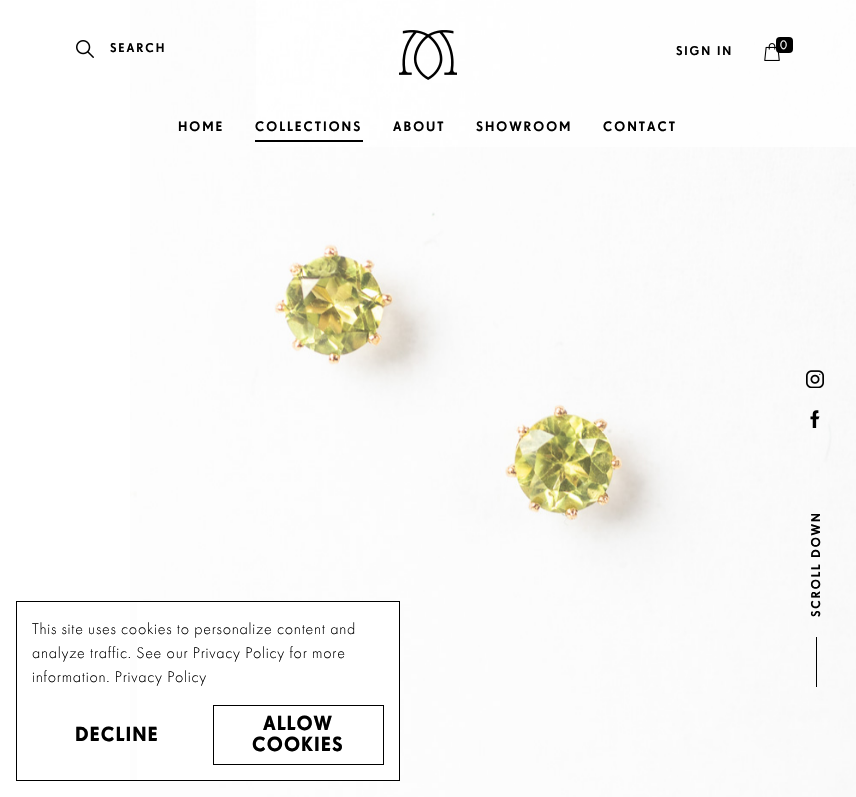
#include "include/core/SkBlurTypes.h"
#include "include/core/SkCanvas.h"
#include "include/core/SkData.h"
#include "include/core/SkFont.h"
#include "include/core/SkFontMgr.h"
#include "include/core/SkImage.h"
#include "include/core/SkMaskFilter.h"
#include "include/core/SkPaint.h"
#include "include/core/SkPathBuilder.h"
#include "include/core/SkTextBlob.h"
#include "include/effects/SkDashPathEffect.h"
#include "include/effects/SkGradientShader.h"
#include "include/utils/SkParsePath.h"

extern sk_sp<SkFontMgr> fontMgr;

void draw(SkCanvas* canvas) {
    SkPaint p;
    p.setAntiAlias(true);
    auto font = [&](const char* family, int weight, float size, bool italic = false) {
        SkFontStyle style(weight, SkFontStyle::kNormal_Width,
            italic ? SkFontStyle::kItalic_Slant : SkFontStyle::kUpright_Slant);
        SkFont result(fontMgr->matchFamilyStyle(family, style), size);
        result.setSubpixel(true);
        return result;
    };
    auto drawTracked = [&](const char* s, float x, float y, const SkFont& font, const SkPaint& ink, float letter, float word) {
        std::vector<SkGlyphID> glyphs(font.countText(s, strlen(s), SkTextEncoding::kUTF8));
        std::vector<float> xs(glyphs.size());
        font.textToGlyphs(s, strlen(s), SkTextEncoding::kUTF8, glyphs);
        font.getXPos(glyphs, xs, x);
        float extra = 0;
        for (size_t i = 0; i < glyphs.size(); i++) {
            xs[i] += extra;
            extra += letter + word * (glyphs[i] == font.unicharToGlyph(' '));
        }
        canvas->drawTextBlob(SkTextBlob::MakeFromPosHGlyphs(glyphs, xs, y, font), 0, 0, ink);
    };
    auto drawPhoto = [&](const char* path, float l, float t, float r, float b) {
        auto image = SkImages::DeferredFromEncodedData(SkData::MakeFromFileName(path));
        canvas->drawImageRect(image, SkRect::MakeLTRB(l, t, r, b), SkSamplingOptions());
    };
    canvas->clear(0xFFFFFFFF);
    drawPhoto("media/1.png", 130, 0, 856, 797);
    p.setColor(0xBFFFFFFF);
    canvas->drawRect(SkRect::MakeLTRB(256, 0, 856, 147), p);
    drawPhoto("media/2.png", 399, 30, 457, 80);
    drawPhoto("media/3.png", 76, 40, 94, 58);
    auto font1 = font("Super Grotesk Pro", 500, 12.25f);
    p.setColor(0xFF000000);
    drawTracked("SEARCH", 110, 52, font1, p, 1.9f, 0);
    auto font2 = font("Super Grotesk Pro", 500, 13.25f);
    drawTracked("HOME", 178, 131, font2, p, 2, 0);
    drawTracked("COLLECTIONS", 255, 131, font2, p, 2, 0);
    canvas->drawRect(SkRect::MakeLTRB(255, 140, 363, 142), p);
    {
        const struct { const char* s; float x, y; } items[] = {
            {"ABOUT", 393, 131},
            {"SHOWROOM", 476, 131},
            {"CONTACT", 603, 131},
        };
        for (auto [s, x, y] : items) {
            drawTracked(s, x, y, font2, p, 2, 0);
        }
    }
    drawTracked("SIGN IN", 676, 55, font1, p, 1.9f, 0);
    drawPhoto("media/4.png", 764, 43, 780, 61);
    canvas->drawRoundRect(SkRect::MakeLTRB(776, 37, 793, 53), 4, 4, p);
    auto font3 = font("Futura PT", 700, 12.25f);
    p.setColor(0xFFFFFFFF);
    drawTracked("0", 780, 49, font3, p, 1.9f, 0);
    drawPhoto("media/5.png", 806, 370, 824, 388);
    drawPhoto("media/6.png", 810, 410, 820, 428);
    p.setColor(0xFF000000);
    canvas->save();
    canvas->rotate(-90, 820, 617);
    drawTracked("SCROLL DOWN", 820, 617, font1, p, 1.9f, 0);
    canvas->restore();
    canvas->drawRect(SkRect::MakeLTRB(816, 637, 817, 687), p);
    p.setColor(0xFFFFFFFF);
    canvas->drawRect(SkRect::MakeLTRB(137, 602, 399, 780), p);
    p.setStyle(SkPaint::kStroke_Style);
    p.setStrokeWidth(1);
    p.setColor(0xFF000000);
    canvas->drawRect(SkRect::MakeLTRB(16.5f, 601.5f, 399.5f, 780.5f), p);
    auto font4 = font("Futura PT", 300, 16);
    p.setStyle(SkPaint::kFill_Style);
    {
        const struct { const char* s; float x, y; } items[] = {
            {"This site uses cookies to personalize content and", 32, 634},
            {"analyze traffic. See our Privacy Policy for more", 32, 658},
            {"information. Privacy Policy", 32, 682},
        };
        for (auto [s, x, y] : items) {
            drawTracked(s, x, y, font4, p, 0.75f, 0);
        }
    }
    auto font5 = font("Super Grotesk Pro", 700, 19);
    drawTracked("DECLINE", 75, 741, font5, p, 1.5f, 0);
    p.setStyle(SkPaint::kStroke_Style);
    canvas->drawRect(SkRect::MakeLTRB(213.5f, 705.5f, 383.5f, 764.5f), p);
    p.setStyle(SkPaint::kFill_Style);
    drawTracked("ALLOW", 263, 730, font5, p, 1.5f, 0);
    drawTracked("COOKIES", 252, 751, font5, p, 1.5f, 0);
}
